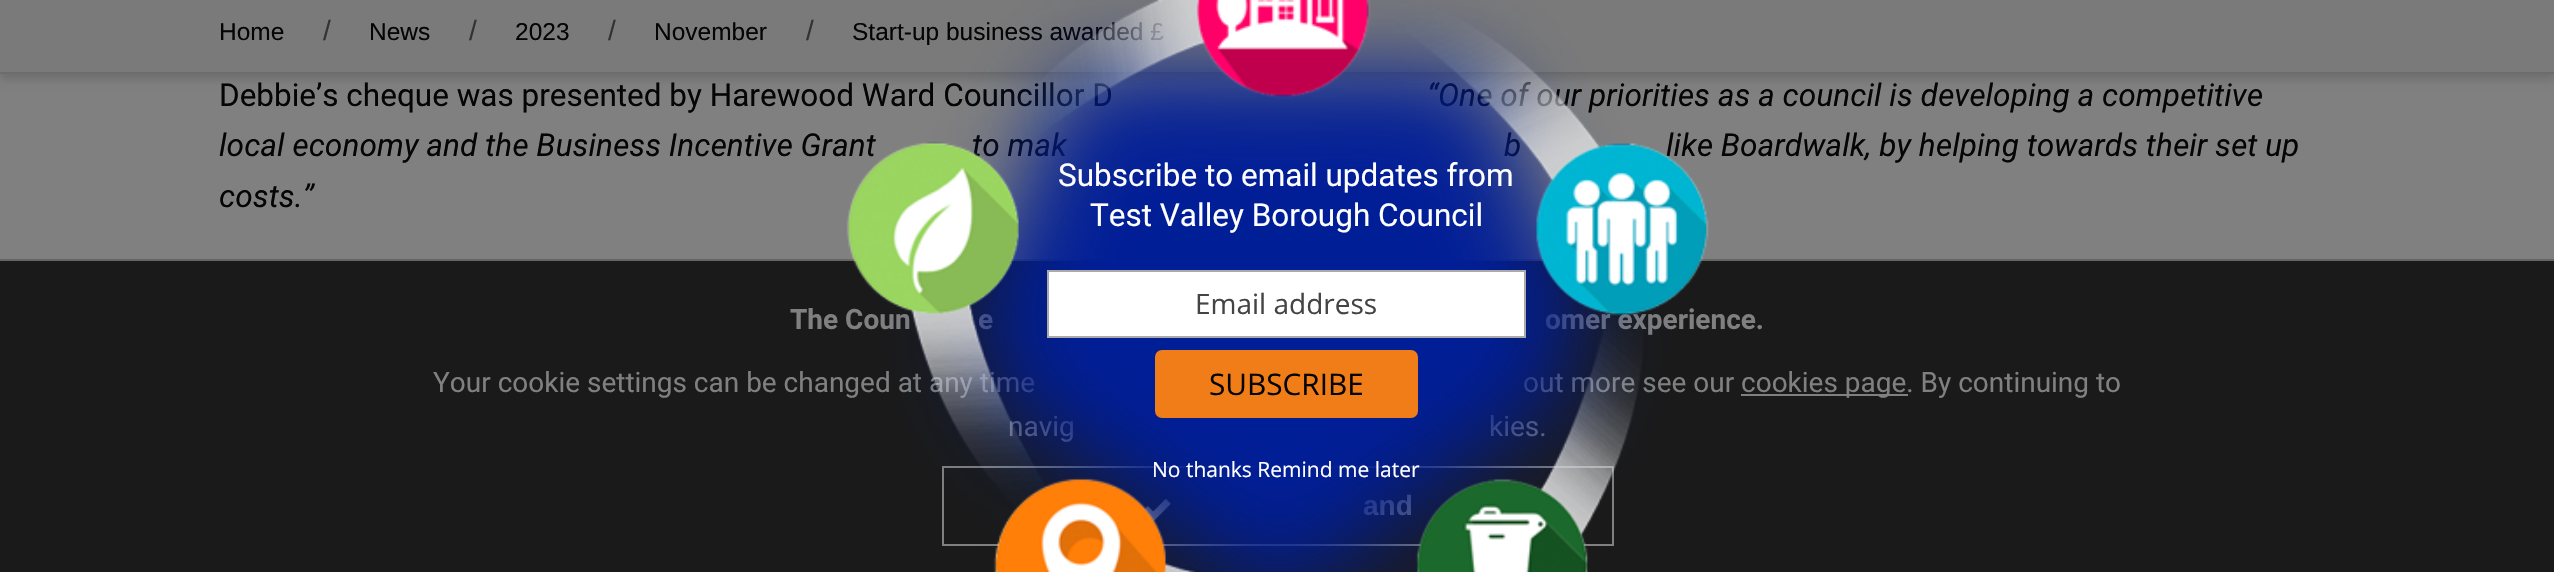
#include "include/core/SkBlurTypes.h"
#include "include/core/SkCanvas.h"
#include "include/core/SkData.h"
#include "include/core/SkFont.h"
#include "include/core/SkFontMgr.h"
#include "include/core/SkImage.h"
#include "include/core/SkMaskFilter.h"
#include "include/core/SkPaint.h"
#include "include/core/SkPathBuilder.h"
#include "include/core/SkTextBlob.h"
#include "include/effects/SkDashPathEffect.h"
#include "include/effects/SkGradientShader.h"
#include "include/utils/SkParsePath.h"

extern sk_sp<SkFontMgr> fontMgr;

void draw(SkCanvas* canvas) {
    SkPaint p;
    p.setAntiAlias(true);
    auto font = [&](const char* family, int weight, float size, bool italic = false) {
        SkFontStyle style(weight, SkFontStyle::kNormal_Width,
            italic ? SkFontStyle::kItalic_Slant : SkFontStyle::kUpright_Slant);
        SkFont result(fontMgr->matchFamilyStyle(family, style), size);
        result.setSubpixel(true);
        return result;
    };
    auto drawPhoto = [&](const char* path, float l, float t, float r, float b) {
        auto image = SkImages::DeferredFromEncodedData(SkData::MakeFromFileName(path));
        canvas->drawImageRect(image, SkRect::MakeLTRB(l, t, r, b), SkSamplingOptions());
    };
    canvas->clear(0xFF808080);
    p.setColor(0x26000000);
    p.setMaskFilter(SkMaskFilter::MakeBlur(kNormal_SkBlurStyle, 4.5f));
    canvas->drawRect(SkRect::MakeLTRB(0, 5, 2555, 79), p);
    p.setMaskFilter(nullptr);
    p.setColor(0xFF7A7A7A);
    canvas->drawRect(SkRect::MakeLTRB(0, 0, 2554, 72), p);
    p.setColor(0xFF6A6C6D);
    canvas->drawRect(SkRect::MakeLTRB(0, 72, 2554, 74), p);
    auto font1 = font("Liberation Sans", 400, 24.5f);
    p.setColor(0xFF050505);
    canvas->drawString("Home", 219, 40, font1, p);
    auto font2 = font("Liberation Sans", 400, 28);
    p.setColor(0xFF333333);
    canvas->drawString("/", 323, 40, font2, p);
    p.setColor(0xFF050505);
    canvas->drawString("News", 369, 40, font1, p);
    p.setColor(0xFF333333);
    canvas->drawString("/", 469, 40, font2, p);
    p.setColor(0xFF050505);
    canvas->drawString("2023", 515, 40, font1, p);
    p.setColor(0xFF333333);
    canvas->drawString("/", 608, 40, font2, p);
    p.setColor(0xFF050505);
    canvas->drawString("November", 654, 40, font1, p);
    p.setColor(0xFF333333);
    canvas->drawString("/", 806, 40, font2, p);
    p.setColor(0xFF050505);
    canvas->drawString("Start-up business awarded £", 852, 40, font1, p);
    auto font3 = font("Roboto", 400, 31.5f);
    canvas->drawString("Debbie’s cheque was presented by Harewood Ward Councillor D", 219, 106, font3, p);
    auto font4 = font("Roboto", 400, 31.5f, true);
    {
        const struct { const char* s; float x, y; } items[] = {
            {"“One of our priorities as a council is developing a competitive", 1427, 106},
            {"local economy and the Business Incentive Grant", 219, 156},
            {"to mak", 972, 156},
            {"b", 1504, 156},
            {"like Boardwalk, by helping towards their set up", 1666, 156},
            {"costs.”", 219, 207},
        };
        for (auto [s, x, y] : items) {
            canvas->drawString(s, x, y, font4, p);
        }
    }
    p.setColor(0xFF1A1A1A);
    canvas->drawRect(SkRect::MakeLTRB(0, 261, 2554, 572), p);
    p.setColor(0xFF666666);
    canvas->drawRect(SkRect::MakeLTRB(0, 259, 2554, 261), p);
    auto font5 = font("Roboto", 700, 28);
    p.setColor(0xFF808080);
    {
        const struct { const char* s; float x, y; } items[] = {
            {"The Coun", 790, 329},
            {"e", 978, 329},
            {"omer experience.", 1545, 329},
        };
        for (auto [s, x, y] : items) {
            canvas->drawString(s, x, y, font5, p);
        }
    }
    auto font6 = font("Roboto", 400, 28);
    {
        const struct { const char* s; float x, y; } items[] = {
            {"Your cookie settings can be changed at any time", 433, 392},
            {"out more see our", 1523, 392},
            {"navig", 1008, 436},
            {"kies.", 1489, 436},
        };
        for (auto [s, x, y] : items) {
            canvas->drawString(s, x, y, font6, p);
        }
    }
    p.setStyle(SkPaint::kStroke_Style);
    p.setStrokeWidth(2);
    canvas->drawRect(SkRect::MakeLTRB(943, 467, 1613, 545), p);
    drawPhoto("media/2.png", 1143, 498, 1171, 522);
    auto font7 = font("Liberation Sans", 700, 28);
    p.setStyle(SkPaint::kFill_Style);
    canvas->drawString("and", 1363, 515, font7, p);
    drawPhoto("media/1.png", 846, 0, 1709, 572);
    p.setColor(0xFFFFFFFF);
    canvas->drawString("Subscribe to email updates from", 1058, 186, font3, p);
    canvas->drawString("Test Valley Borough Council", 1090, 226, font3, p);
    canvas->drawRect(SkRect::MakeLTRB(1048, 271, 1525, 337), p);
    p.setStyle(SkPaint::kStroke_Style);
    p.setColor(0xFFAAAAAA);
    canvas->drawRect(SkRect::MakeLTRB(1048, 271, 1525, 337), p);
    auto font8 = font("Open Sans", 400, 28);
    p.setStyle(SkPaint::kFill_Style);
    p.setColor(0xFF444444);
    canvas->drawString("Email address", 1195, 314, font8, p);
    p.setColor(0xFFF07D17);
    canvas->drawRoundRect(SkRect::MakeLTRB(1156, 351, 1417, 417), 6, 6, p);
    p.setStyle(SkPaint::kStroke_Style);
    canvas->drawRoundRect(SkRect::MakeLTRB(1156, 351, 1417, 417), 6, 6, p);
    auto font9 = font("Open Sans", 400, 29.75f);
    p.setStyle(SkPaint::kFill_Style);
    p.setColor(0xFF050505);
    canvas->drawString("SUBSCRIBE", 1209, 395, font9, p);
    auto font10 = font("Open Sans", 400, 21);
    p.setColor(0xFFFFFFFF);
    canvas->drawString("No thanks Remind me later", 1152, 477, font10, p);
    p.setColor(0xFF808080);
    canvas->drawRect(SkRect::MakeLTRB(1741, 394, 1908, 396), p);
    canvas->drawString("cookies page. By continuing to", 1741, 392, font6, p);
}
